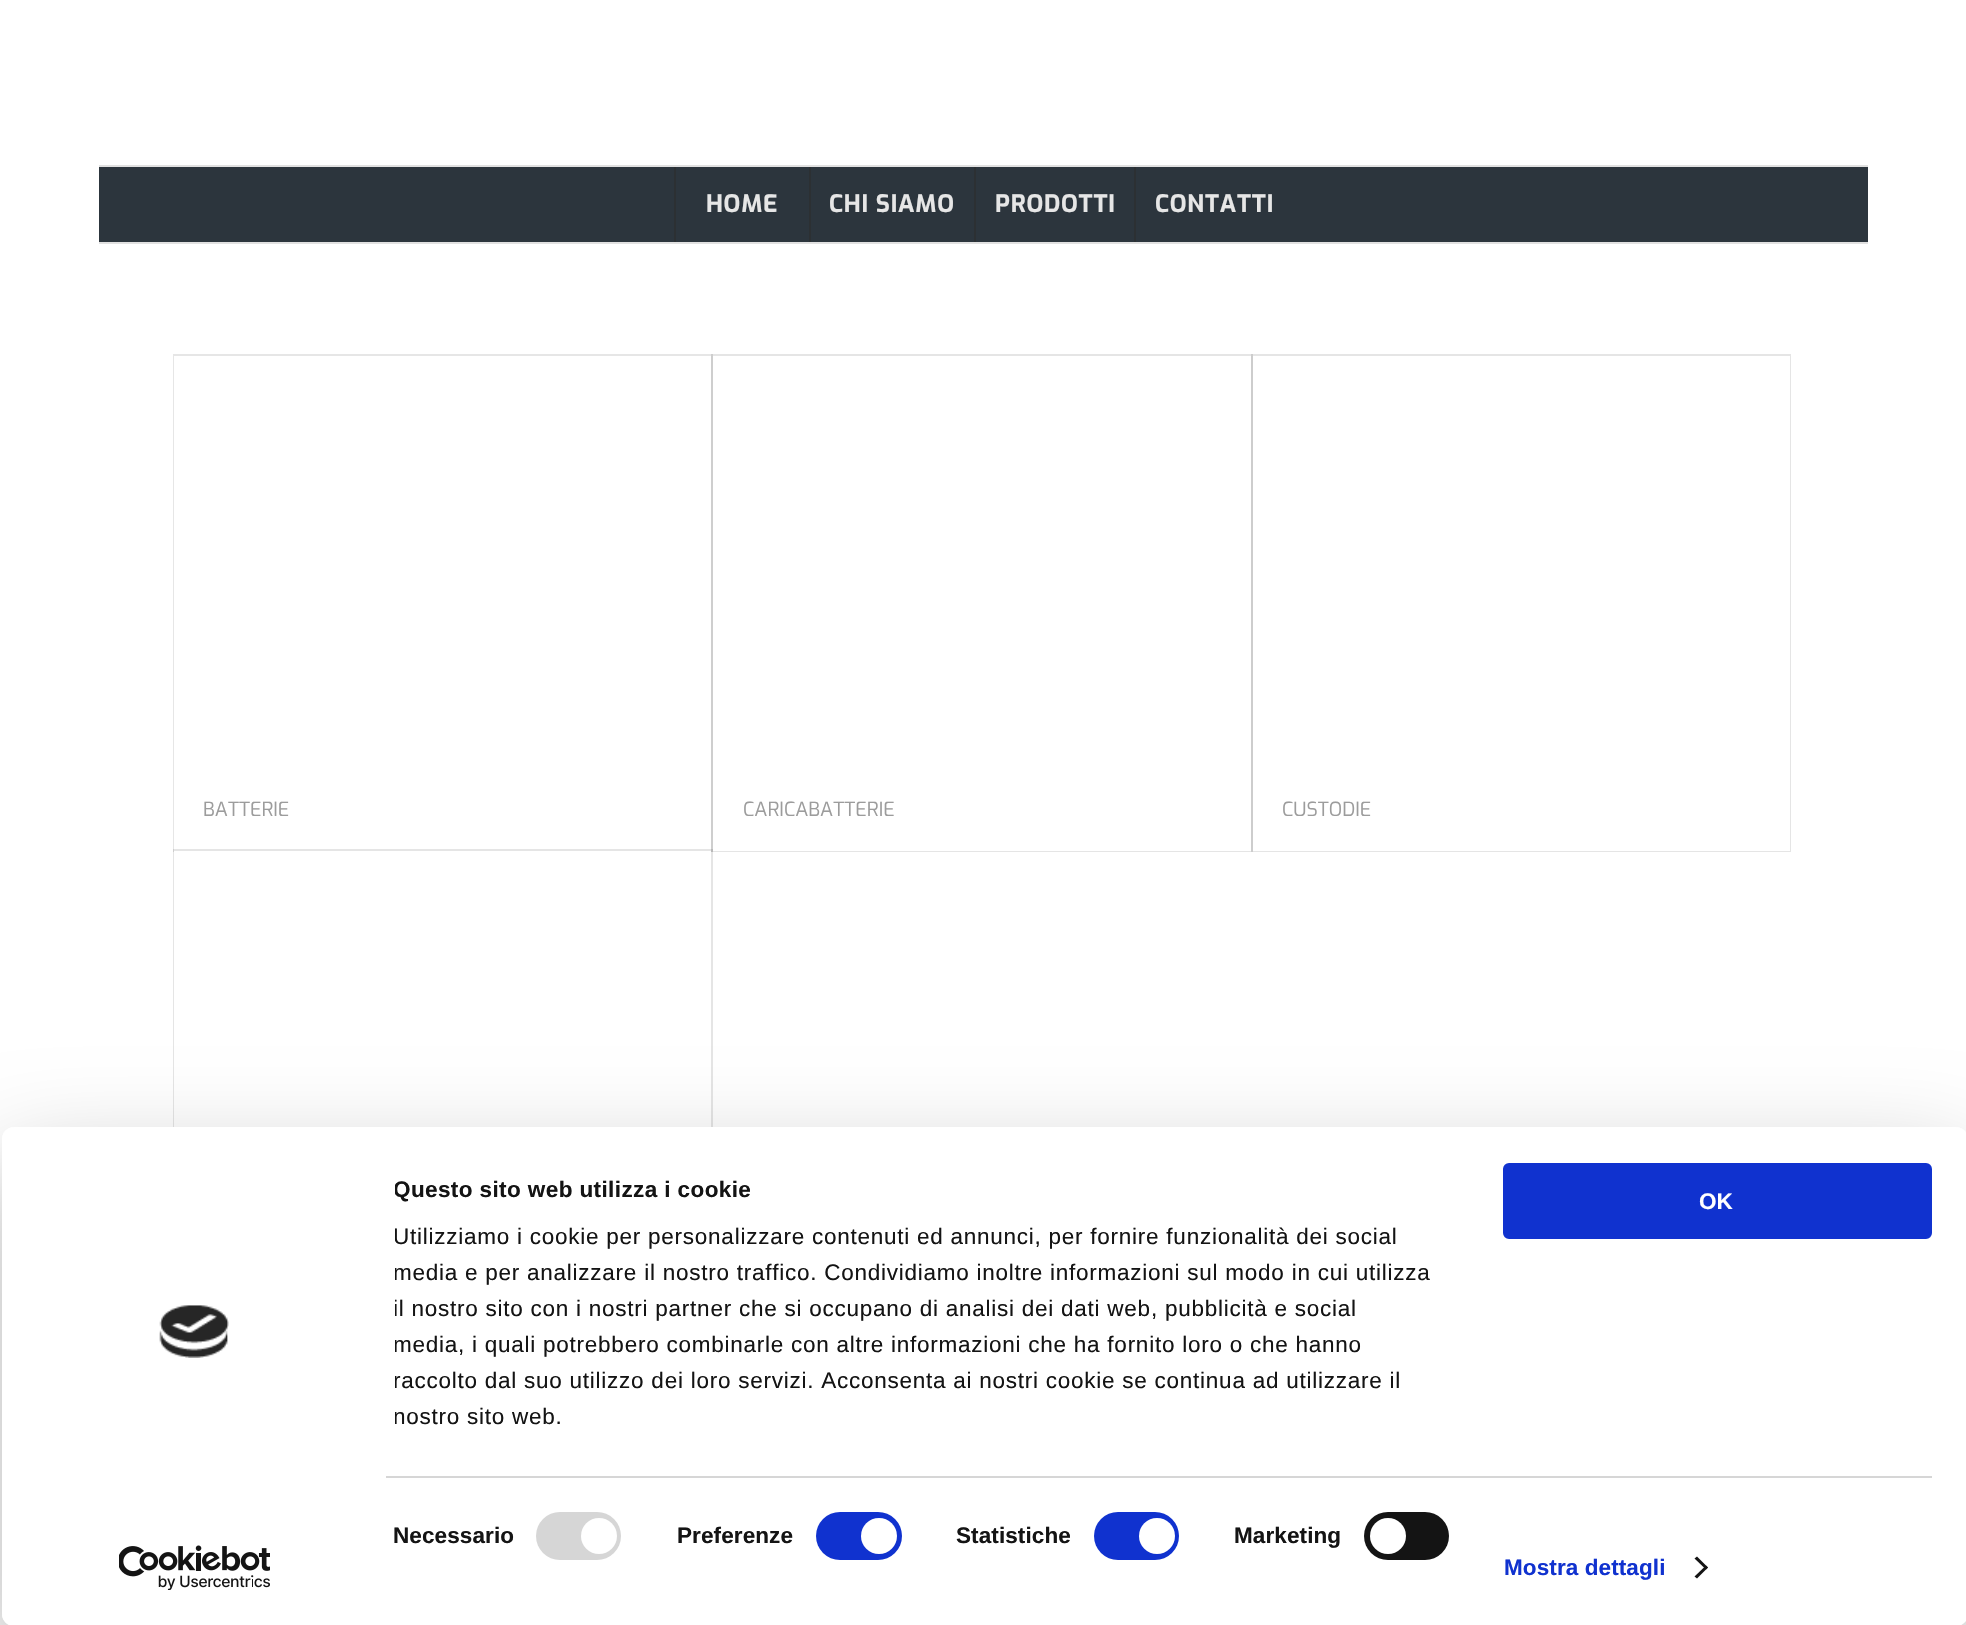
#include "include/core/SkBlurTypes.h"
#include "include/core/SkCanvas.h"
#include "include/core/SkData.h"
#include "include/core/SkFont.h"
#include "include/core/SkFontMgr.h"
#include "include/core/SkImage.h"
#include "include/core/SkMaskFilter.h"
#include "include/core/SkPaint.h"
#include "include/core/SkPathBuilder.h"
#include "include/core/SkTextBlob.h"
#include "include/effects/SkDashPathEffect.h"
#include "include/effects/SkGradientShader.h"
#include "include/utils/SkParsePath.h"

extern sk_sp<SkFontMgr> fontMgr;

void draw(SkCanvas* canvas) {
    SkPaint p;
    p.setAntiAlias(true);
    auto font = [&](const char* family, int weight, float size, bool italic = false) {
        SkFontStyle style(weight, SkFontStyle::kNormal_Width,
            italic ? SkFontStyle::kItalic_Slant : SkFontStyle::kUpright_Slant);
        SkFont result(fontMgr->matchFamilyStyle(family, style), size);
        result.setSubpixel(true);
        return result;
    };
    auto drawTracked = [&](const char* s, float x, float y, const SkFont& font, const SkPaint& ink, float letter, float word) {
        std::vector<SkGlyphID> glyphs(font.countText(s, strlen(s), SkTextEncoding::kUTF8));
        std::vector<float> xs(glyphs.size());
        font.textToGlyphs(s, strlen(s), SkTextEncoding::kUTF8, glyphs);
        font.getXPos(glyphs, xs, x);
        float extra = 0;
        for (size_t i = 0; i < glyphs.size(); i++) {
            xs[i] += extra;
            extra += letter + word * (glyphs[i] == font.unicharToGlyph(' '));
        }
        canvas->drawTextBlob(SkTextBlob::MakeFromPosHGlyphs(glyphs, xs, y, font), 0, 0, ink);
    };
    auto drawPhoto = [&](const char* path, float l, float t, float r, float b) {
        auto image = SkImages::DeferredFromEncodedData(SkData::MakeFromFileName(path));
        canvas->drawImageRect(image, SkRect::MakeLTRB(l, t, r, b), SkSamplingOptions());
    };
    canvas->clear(0xFFFFFFFF);
    {
        const struct { float l, t, r, b; SkColor color; } items[] = {
            {99, 242, 1868, 244, 0xFFE1E1E1},
            {99, 167, 1868, 242, 0xFF2C353D},
            {99, 165, 1868, 167, 0xFFE1E1E1},
            {674, 167, 676, 242, 0xFF2C3033},
        };
        for (auto [l, t, r, b, color] : items) {
            p.setColor(color);
            canvas->drawRect(SkRect::MakeLTRB(l, t, r, b), p);
        }
    }
    auto font1 = font("Exo", 700, 24);
    p.setColor(0xFFE6E6E6);
    drawTracked("HOME", 706, 212, font1, p, 0.75f, 0);
    p.setColor(0xFF2C3033);
    canvas->drawRect(SkRect::MakeLTRB(809, 167, 811, 242), p);
    p.setColor(0xFFE6E6E6);
    drawTracked("CHI SIAMO", 829, 212, font1, p, 0.75f, 0);
    p.setColor(0xFF2C3033);
    canvas->drawRect(SkRect::MakeLTRB(974, 167, 976, 242), p);
    p.setColor(0xFFE6E6E6);
    drawTracked("PRODOTTI", 995, 212, font1, p, 0.75f, 0);
    p.setColor(0xFF2C3033);
    canvas->drawRect(SkRect::MakeLTRB(1134, 167, 1136, 242), p);
    p.setColor(0xFFE6E6E6);
    drawTracked("CONTATTI", 1155, 212, font1, p, 0.75f, 0);
    p.setStyle(SkPaint::kStroke_Style);
    p.setStrokeWidth(2);
    canvas->drawRect(SkRect::MakeLTRB(174, 355, 712, 851), p);
    p.setStyle(SkPaint::kFill_Style);
    p.setColor(0xFFFFFFFF);
    canvas->drawRect(SkRect::MakeLTRB(174, 356, 711, 851), p);
    auto font2 = font("Exo", 400, 19.5f);
    p.setColor(0xFF9C9C9C);
    canvas->drawString("BATTERIE", 203, 816, font2, p);
    p.setStyle(SkPaint::kStroke_Style);
    p.setColor(0x1A000000);
    canvas->drawRect(SkRect::MakeLTRB(712, 355, 1252, 851), p);
    p.setStyle(SkPaint::kFill_Style);
    p.setColor(0xFFFFFFFF);
    canvas->drawRect(SkRect::MakeLTRB(713, 850, 1251, 851), p);
    p.setColor(0xFF9C9C9C);
    canvas->drawString("CARICABATTERIE", 743, 816, font2, p);
    p.setStyle(SkPaint::kStroke_Style);
    p.setColor(0x1A000000);
    canvas->drawRect(SkRect::MakeLTRB(1252, 355, 1790, 851), p);
    p.setStyle(SkPaint::kFill_Style);
    p.setColor(0xFFFFFFFF);
    canvas->drawRect(SkRect::MakeLTRB(1253, 356, 1790, 851), p);
    p.setColor(0xFF9C9C9C);
    canvas->drawString("CUSTODIE", 1282, 816, font2, p);
    p.setStyle(SkPaint::kStroke_Style);
    p.setColor(0x1A000000);
    canvas->drawRect(SkRect::MakeLTRB(174, 850, 712, 1348), p);
    p.setStyle(SkPaint::kFill_Style);
    p.setColor(0xFFFFFFFF);
    canvas->drawRect(SkRect::MakeLTRB(174, 851, 711, 1127), p);
    canvas->save();
    canvas->clipPath(SkPathBuilder(SkPathFillType::kEvenOdd).moveTo(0, 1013).lineTo(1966, 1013).lineTo(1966, 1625).lineTo(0, 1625).close().moveTo(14, 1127).lineTo(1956, 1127).cubicTo(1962.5f, 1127, 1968, 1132.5f, 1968, 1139).lineTo(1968, 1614).cubicTo(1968, 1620.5f, 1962.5f, 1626, 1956, 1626).lineTo(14, 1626).cubicTo(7.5f, 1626, 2, 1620.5f, 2, 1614).lineTo(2, 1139).cubicTo(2, 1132.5f, 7.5f, 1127, 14, 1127).close().detach(), true);
    p.setColor(0x4D000000);
    p.setMaskFilter(SkMaskFilter::MakeBlur(kNormal_SkBlurStyle, 52.5f));
    canvas->drawRoundRect(SkRect::MakeLTRB(2, 1172, 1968, 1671), 12, 12, p);
    p.setMaskFilter(nullptr);
    canvas->restore();
    p.setColor(0xFFFFFFFF);
    canvas->drawRoundRect(SkRect::MakeLTRB(2, 1127, 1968, 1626), 12, 12, p);
    canvas->save();
    canvas->clipRect(SkRect::MakeLTRB(395, 1172, 1460, 1434));
    auto font3 = font("Liberation Sans", 700, 22.5f);
    p.setColor(0xFF141414);
    drawTracked("Questo sito web utilizza i cookie", 393, 1197, font3, p, 0.4f, 0);
    auto font4 = font("Liberation Sans", 400, 22.5f);
    {
        const struct { const char* s; float x, y; } items[] = {
            {"Utilizziamo i cookie per personalizzare contenuti ed annunci, per fornire funzionalità dei social", 393, 1244},
            {"media e per analizzare il nostro traffico. Condividiamo inoltre informazioni sul modo in cui utilizza", 393, 1280},
            {"il nostro sito con i nostri partner che si occupano di analisi dei dati web, pubblicità e social", 393, 1316},
            {"media, i quali potrebbero combinarle con altre informazioni che ha fornito loro o che hanno", 393, 1352},
            {"raccolto dal suo utilizzo dei loro servizi. Acconsenta ai nostri cookie se continua ad utilizzare il", 393, 1388},
            {"nostro sito web.", 393, 1424},
        };
        for (auto [s, x, y] : items) {
            drawTracked(s, x, y, font4, p, 0.75f, 0);
        }
    }
    canvas->restore();
    p.setColor(0xFFD6D6D6);
    canvas->drawRect(SkRect::MakeLTRB(386, 1476, 1932, 1478), p);
    p.setColor(0xFF141414);
    drawTracked("Necessario", 393, 1543, font3, p, 0.1f, 0);
    p.setColor(0xFFD6D6D6);
    canvas->drawRoundRect(SkRect::MakeLTRB(536, 1512, 621, 1560), 24, 24, p);
    p.setColor(0xFFFFFFFF);
    canvas->drawCircle(599, 1536, 18, p);
    p.setColor(0xFF141414);
    drawTracked("Preferenze", 677, 1543, font3, p, 0.1f, 0);
    p.setColor(0xFF1032CF);
    canvas->drawRoundRect(SkRect::MakeLTRB(816, 1512, 902, 1560), 24, 24, p);
    p.setColor(0xFFFFFFFF);
    canvas->drawCircle(879, 1536, 18, p);
    p.setColor(0xFF141414);
    drawTracked("Statistiche", 956, 1543, font3, p, 0.1f, 0);
    p.setColor(0xFF1032CF);
    canvas->drawRoundRect(SkRect::MakeLTRB(1094, 1512, 1179, 1560), 24, 24, p);
    p.setColor(0xFFFFFFFF);
    canvas->drawCircle(1157, 1536, 18, p);
    p.setColor(0xFF141414);
    drawTracked("Marketing", 1234, 1543, font3, p, 0.1f, 0);
    canvas->drawRoundRect(SkRect::MakeLTRB(1364, 1512, 1449, 1560), 24, 24, p);
    p.setColor(0xFFFFFFFF);
    canvas->drawCircle(1388, 1536, 18, p);
    p.setColor(0xFF1032CF);
    drawTracked("Mostra dettagli", 1504, 1575, font3, p, 0.1f, 0);
    p.setColor(0xFF141414);
    canvas->drawPath(SkPathBuilder().moveTo(1697, 1556.5f).lineTo(1708, 1567.5f).lineTo(1706, 1569.5f).lineTo(1694.5f, 1558.5f).close().detach(), p);
    canvas->drawPath(SkPathBuilder().moveTo(1706, 1565.5f).lineTo(1708, 1567.5f).lineTo(1697, 1578.5f).lineTo(1694.5f, 1576.5f).close().detach(), p);
    p.setColor(0xFF1032CF);
    canvas->drawRoundRect(SkRect::MakeLTRB(1504.5f, 1164.5f, 1930.5f, 1237.5f), 4.5f, 4.5f, p);
    p.setStyle(SkPaint::kStroke_Style);
    p.setStrokeWidth(3);
    canvas->drawRoundRect(SkRect::MakeLTRB(1504.5f, 1164.5f, 1930.5f, 1237.5f), 4.5f, 4.5f, p);
    p.setStyle(SkPaint::kFill_Style);
    p.setColor(0xFFFFFFFF);
    canvas->drawString("OK", 1699, 1209, font3, p);
    drawPhoto("media/1.png", 159, 1305, 229, 1358);
    drawPhoto("media/2.png", 119, 1545, 270, 1590);
}
